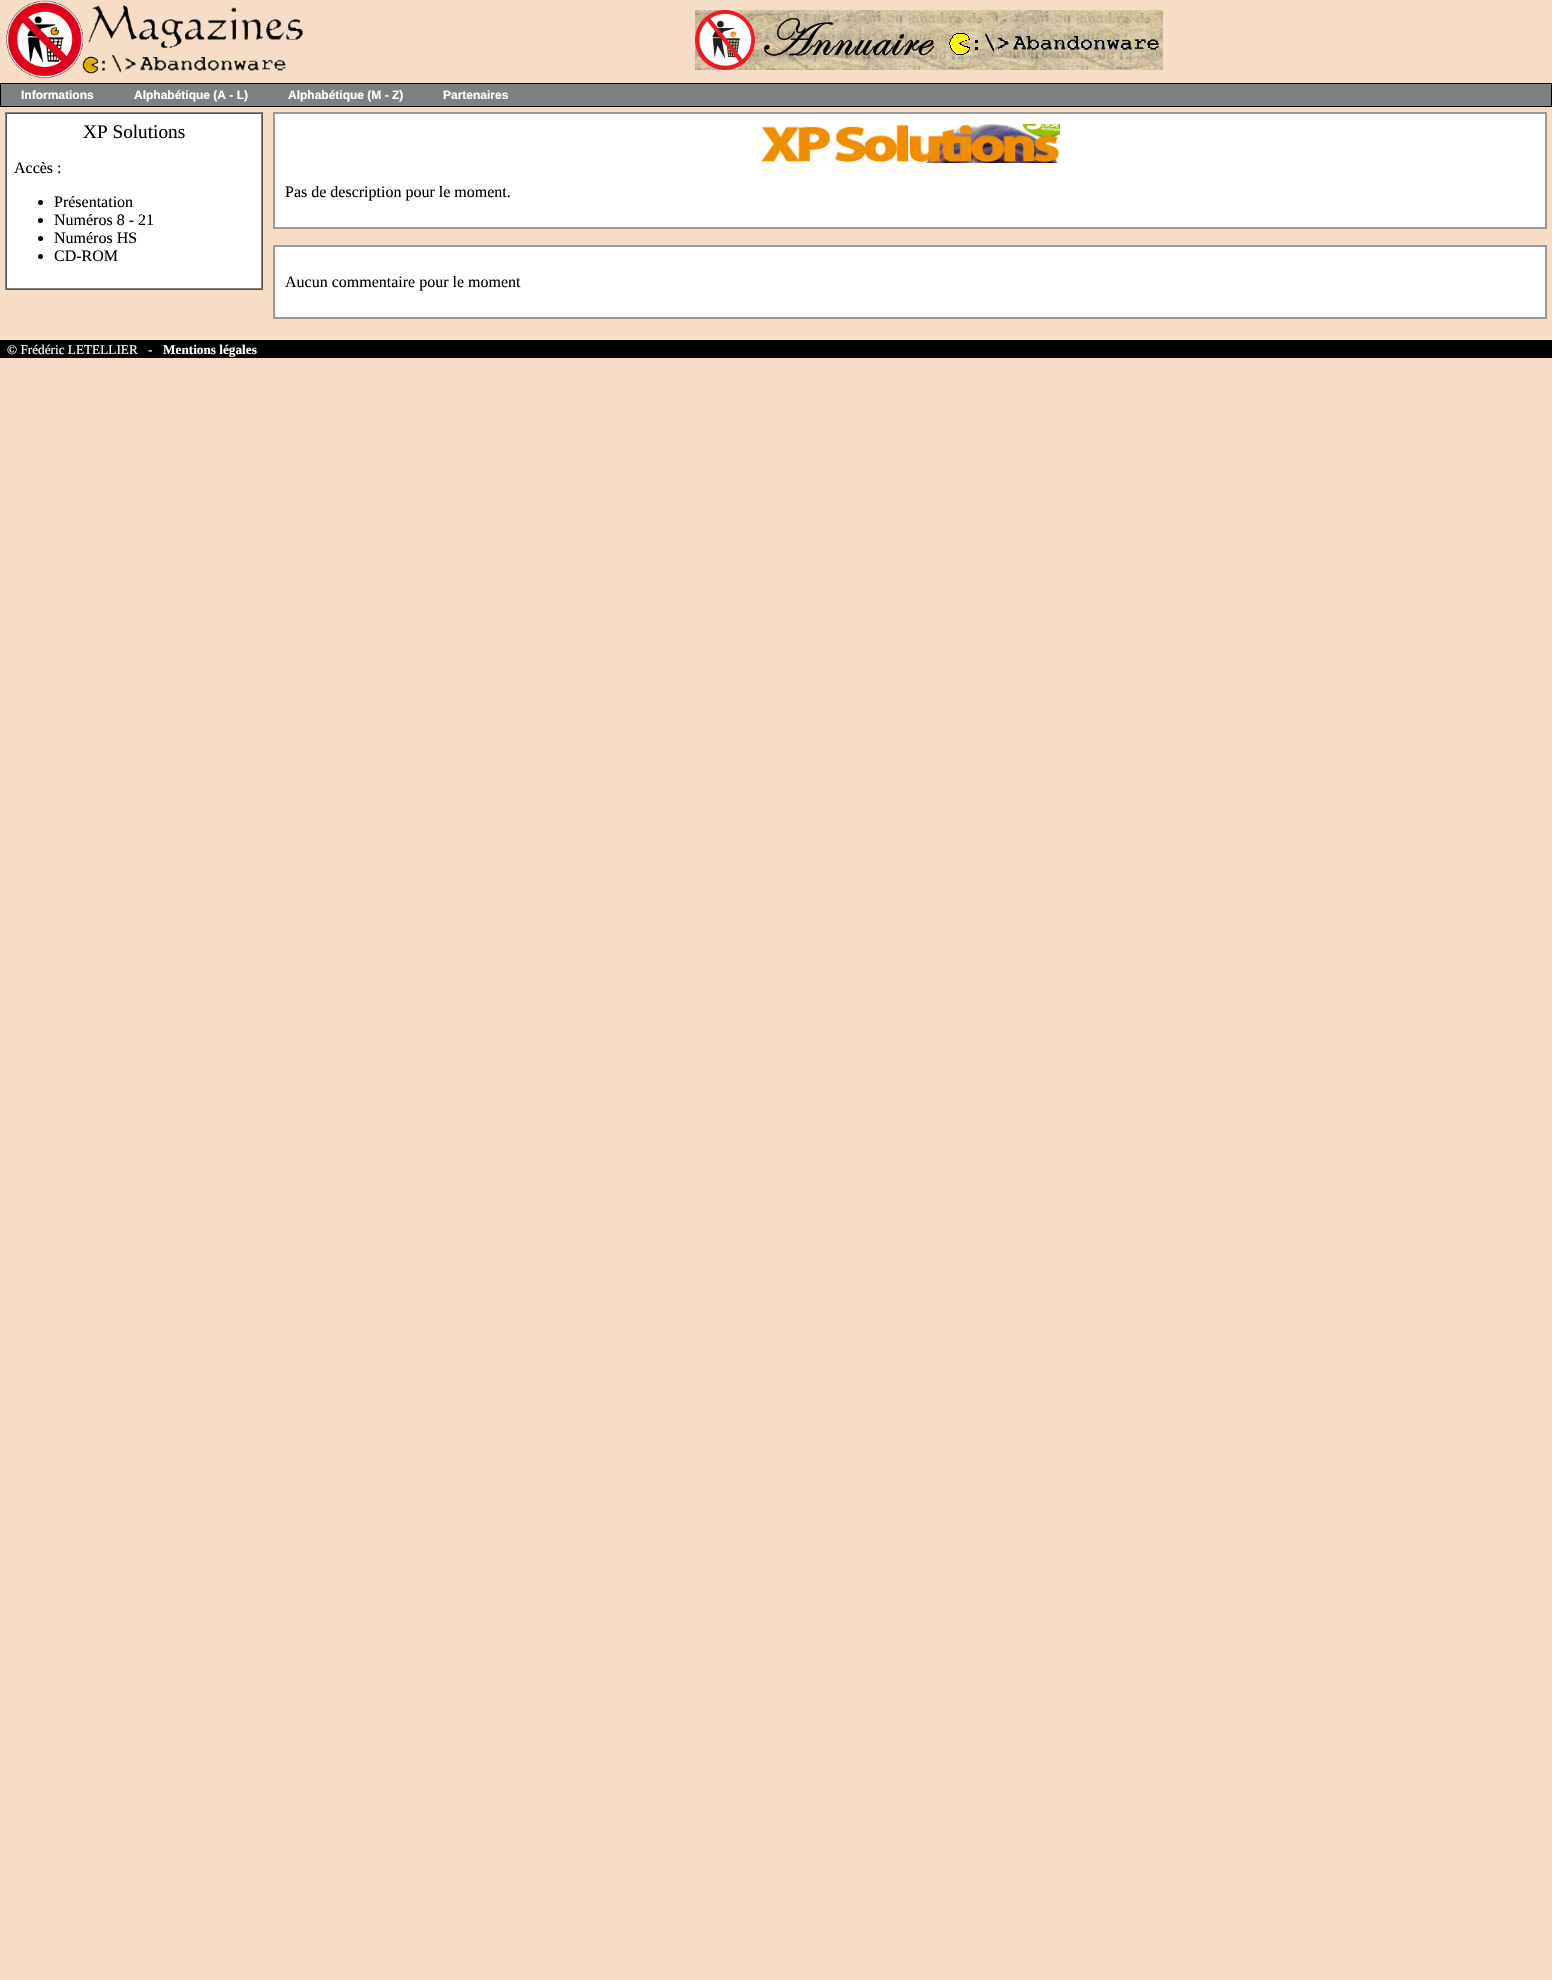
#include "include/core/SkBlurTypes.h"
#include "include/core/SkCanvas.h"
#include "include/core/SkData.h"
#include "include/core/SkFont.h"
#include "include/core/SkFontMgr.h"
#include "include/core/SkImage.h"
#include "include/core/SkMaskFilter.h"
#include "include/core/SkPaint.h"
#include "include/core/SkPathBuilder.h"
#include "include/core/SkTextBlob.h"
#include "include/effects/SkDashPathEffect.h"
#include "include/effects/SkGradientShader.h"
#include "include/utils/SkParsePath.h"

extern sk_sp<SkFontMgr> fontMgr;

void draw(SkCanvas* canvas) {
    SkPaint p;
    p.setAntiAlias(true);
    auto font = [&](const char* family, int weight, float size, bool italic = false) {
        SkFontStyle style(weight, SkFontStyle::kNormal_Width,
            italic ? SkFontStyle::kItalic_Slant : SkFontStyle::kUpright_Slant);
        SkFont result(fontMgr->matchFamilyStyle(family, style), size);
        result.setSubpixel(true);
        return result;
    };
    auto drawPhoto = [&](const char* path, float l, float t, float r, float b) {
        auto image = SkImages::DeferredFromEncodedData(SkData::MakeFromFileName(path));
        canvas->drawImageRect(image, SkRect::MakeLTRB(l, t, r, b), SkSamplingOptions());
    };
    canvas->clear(0xFFF6DDC7);
    drawPhoto("media/1.png", 6, 0, 303, 79);
    drawPhoto("media/2.png", 695, 10, 1163, 70);
    p.setColor(0xFF000000);
    canvas->drawRect(SkRect::MakeLTRB(0, 83, 1552, 107), p);
    p.setColor(0xFF808080);
    canvas->drawRect(SkRect::MakeLTRB(1, 84, 1551, 106), p);
    auto font1 = font("Liberation Sans", 700, 12);
    p.setColor(0xFFFFFFFF);
    {
        const struct { const char* s; float x, y; } items[] = {
            {"Informations", 21, 99},
            {"Alphabétique (A - L)", 134, 99},
            {"Alphabétique (M - Z)", 288, 99},
            {"Partenaires", 443, 99},
        };
        for (auto [s, x, y] : items) {
            canvas->drawString(s, x, y, font1, p);
        }
    }
    {
        const struct { float l, t, r, b; SkColor color; } items[] = {
            {5, 112, 263, 113, 0xFF808080},
            {262, 112, 263, 290, 0xFF555555},
            {5, 289, 263, 290, 0xFF555555},
            {5, 112, 6, 290, 0xFF808080},
            {7, 114, 261, 288, 0xFFFFFFFF},
            {6, 113, 262, 114, 0xFF555555},
            {261, 113, 262, 289, 0xFF808080},
            {6, 288, 262, 289, 0xFF808080},
            {6, 113, 7, 289, 0xFF555555},
        };
        for (auto [l, t, r, b, color] : items) {
            p.setColor(color);
            canvas->drawRect(SkRect::MakeLTRB(l, t, r, b), p);
        }
    }
    auto font2 = font("Liberation Serif", 400, 19.25f);
    p.setColor(0xFF000000);
    canvas->drawString("XP Solutions", 83, 138, font2, p);
    auto font3 = font("Liberation Serif", 400, 16);
    canvas->drawString("Accès :", 14, 173, font3, p);
    canvas->drawCircle(40.5f, 202.5f, 2.5f, p);
    canvas->drawString("Présentation", 54, 207, font3, p);
    canvas->drawCircle(40.5f, 220.5f, 2.5f, p);
    canvas->drawString("Numéros 8 - 21", 54, 225, font3, p);
    canvas->drawCircle(40.5f, 238.5f, 2.5f, p);
    canvas->drawString("Numéros HS", 54, 243, font3, p);
    canvas->drawCircle(40.5f, 256.5f, 2.5f, p);
    canvas->drawString("CD-ROM", 54, 261, font3, p);
    p.setStyle(SkPaint::kStroke_Style);
    p.setStrokeWidth(1);
    p.setColor(0xFF999999);
    canvas->drawRect(SkRect::MakeLTRB(273.5f, 112.5f, 1546.5f, 228.5f), p);
    p.setStyle(SkPaint::kFill_Style);
    p.setColor(0xFFFFFFFF);
    canvas->drawRect(SkRect::MakeLTRB(274.5f, 113.5f, 1545.5f, 227.5f), p);
    p.setStyle(SkPaint::kStroke_Style);
    p.setColor(0xFF999999);
    canvas->drawRect(SkRect::MakeLTRB(274.5f, 113.5f, 1545.5f, 227.5f), p);
    drawPhoto("media/3.png", 760, 124, 1060, 163);
    p.setStyle(SkPaint::kFill_Style);
    p.setColor(0xFF000000);
    canvas->drawString("Pas de description pour le moment.", 285, 197, font3, p);
    p.setStyle(SkPaint::kStroke_Style);
    p.setColor(0xFF999999);
    canvas->drawRect(SkRect::MakeLTRB(273.5f, 245.5f, 1546.5f, 318.5f), p);
    p.setStyle(SkPaint::kFill_Style);
    p.setColor(0xFFFFFFFF);
    canvas->drawRect(SkRect::MakeLTRB(274.5f, 246.5f, 1545.5f, 317.5f), p);
    p.setStyle(SkPaint::kStroke_Style);
    p.setColor(0xFF999999);
    canvas->drawRect(SkRect::MakeLTRB(274.5f, 246.5f, 1545.5f, 317.5f), p);
    p.setStyle(SkPaint::kFill_Style);
    p.setColor(0xFF000000);
    canvas->drawString("Aucun commentaire pour le moment", 285, 287, font3, p);
    canvas->drawRect(SkRect::MakeLTRB(0, 340, 1552, 358), p);
    auto font4 = font("Liberation Serif", 400, 13.25f);
    p.setColor(0xFFFFFFFF);
    canvas->drawString("© Frédéric LETELLIER", 7, 354, font4, p);
    canvas->drawString("-", 148, 354, font4, p);
    auto font5 = font("Liberation Serif", 700, 13.25f);
    canvas->drawString("Mentions légales", 163, 354, font5, p);
}
